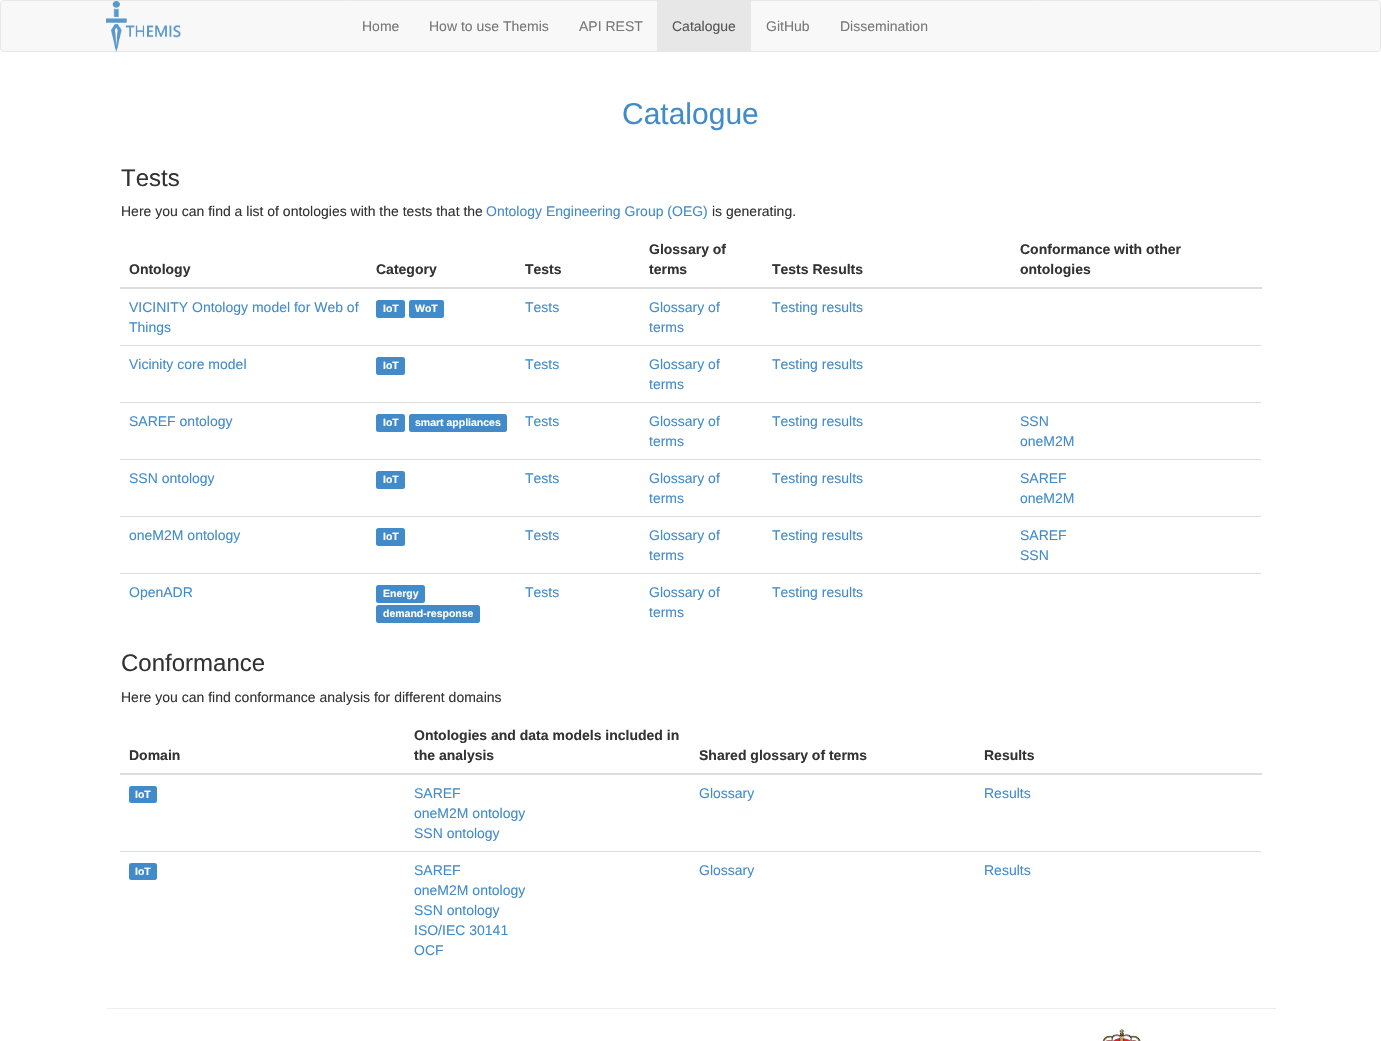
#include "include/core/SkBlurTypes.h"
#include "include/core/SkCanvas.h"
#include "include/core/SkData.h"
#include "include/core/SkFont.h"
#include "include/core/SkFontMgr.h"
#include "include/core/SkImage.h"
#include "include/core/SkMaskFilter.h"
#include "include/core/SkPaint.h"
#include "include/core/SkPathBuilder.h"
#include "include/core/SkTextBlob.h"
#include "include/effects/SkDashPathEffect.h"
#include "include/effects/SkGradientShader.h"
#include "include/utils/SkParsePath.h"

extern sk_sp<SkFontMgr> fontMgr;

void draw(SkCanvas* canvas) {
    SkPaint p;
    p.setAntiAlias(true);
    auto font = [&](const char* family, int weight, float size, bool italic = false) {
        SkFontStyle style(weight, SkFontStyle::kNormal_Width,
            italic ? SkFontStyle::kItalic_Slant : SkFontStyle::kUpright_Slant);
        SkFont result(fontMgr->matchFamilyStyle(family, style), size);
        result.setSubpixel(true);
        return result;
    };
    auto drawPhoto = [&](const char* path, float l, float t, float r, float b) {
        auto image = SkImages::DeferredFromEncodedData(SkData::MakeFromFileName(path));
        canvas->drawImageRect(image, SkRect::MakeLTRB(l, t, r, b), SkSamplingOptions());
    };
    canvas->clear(0xFFFFFFFF);
    p.setColor(0xFFF8F8F8);
    canvas->drawRoundRect(SkRect::MakeLTRB(0.5f, 0.5f, 1380.5f, 51.5f), 3.5f, 3.5f, p);
    p.setStyle(SkPaint::kStroke_Style);
    p.setStrokeWidth(1);
    p.setColor(0xFFE7E7E7);
    canvas->drawRoundRect(SkRect::MakeLTRB(0.5f, 0.5f, 1380.5f, 51.5f), 3.5f, 3.5f, p);
    drawPhoto("media/1.png", 106, 1, 181, 52);
    auto font1 = font("Liberation Sans", 400, 14);
    p.setStyle(SkPaint::kFill_Style);
    p.setColor(0xFF777777);
    {
        const struct { const char* s; float x, y; } items[] = {
            {"Home", 362, 31},
            {"How to use Themis", 429, 31},
            {"API REST", 579, 31},
        };
        for (auto [s, x, y] : items) {
            canvas->drawString(s, x, y, font1, p);
        }
    }
    p.setColor(0xFFE7E7E7);
    canvas->drawRect(SkRect::MakeLTRB(657, 1, 751, 51), p);
    p.setColor(0xFF555555);
    canvas->drawString("Catalogue", 672, 31, font1, p);
    p.setColor(0xFF777777);
    canvas->drawString("GitHub", 766, 31, font1, p);
    canvas->drawString("Dissemination", 840, 31, font1, p);
    auto font2 = font("Liberation Sans", 400, 30);
    p.setColor(0xFF428BCA);
    canvas->drawString("Catalogue", 622, 124, font2, p);
    auto font3 = font("Liberation Sans", 400, 24);
    p.setColor(0xFF333333);
    canvas->drawString("Tests", 121, 186, font3, p);
    canvas->drawString("Here you can find a list of ontologies with the tests that the", 121, 216, font1, p);
    p.setColor(0xFF428BCA);
    canvas->drawString("Ontology Engineering Group (OEG)", 486, 216, font1, p);
    p.setColor(0xFF333333);
    canvas->drawString("is generating.", 712, 216, font1, p);
    auto font4 = font("Liberation Sans", 700, 14);
    {
        const struct { const char* s; float x, y; } items[] = {
            {"Ontology", 129, 274},
            {"Category", 376, 274},
            {"Tests", 525, 274},
            {"Glossary of", 649, 254},
            {"terms", 649, 274},
            {"Tests Results", 772, 274},
        };
        for (auto [s, x, y] : items) {
            canvas->drawString(s, x, y, font4, p);
        }
    }
    p.setColor(0xFFDDDDDD);
    canvas->drawRect(SkRect::MakeLTRB(120, 287, 1262, 289), p);
    p.setColor(0xFF333333);
    canvas->drawString("Conformance with other", 1020, 254, font4, p);
    canvas->drawString("ontologies", 1020, 274, font4, p);
    p.setColor(0xFF428BCA);
    canvas->drawString("VICINITY Ontology model for Web of", 129, 312, font1, p);
    canvas->drawString("Things", 129, 332, font1, p);
    canvas->drawRoundRect(SkRect::MakeLTRB(376, 300, 405, 318), 2.5f, 2.5f, p);
    auto font5 = font("Liberation Sans", 700, 10.5f);
    p.setColor(0xFFFFFFFF);
    canvas->drawString("IoT", 383, 312, font5, p);
    p.setColor(0xFF428BCA);
    canvas->drawRoundRect(SkRect::MakeLTRB(409, 300, 444, 318), 2.5f, 2.5f, p);
    p.setColor(0xFFFFFFFF);
    canvas->drawString("WoT", 415, 312, font5, p);
    p.setColor(0xFF428BCA);
    {
        const struct { const char* s; float x, y; } items[] = {
            {"Tests", 525, 312},
            {"Glossary of", 649, 312},
            {"terms", 649, 332},
            {"Testing results", 772, 312},
        };
        for (auto [s, x, y] : items) {
            canvas->drawString(s, x, y, font1, p);
        }
    }
    p.setColor(0xFFDDDDDD);
    canvas->drawRect(SkRect::MakeLTRB(120, 345, 1261, 346), p);
    p.setColor(0xFF428BCA);
    canvas->drawString("Vicinity core model", 129, 369, font1, p);
    canvas->drawRoundRect(SkRect::MakeLTRB(376, 357, 405, 375), 2.5f, 2.5f, p);
    p.setColor(0xFFFFFFFF);
    canvas->drawString("IoT", 383, 369, font5, p);
    p.setColor(0xFF428BCA);
    {
        const struct { const char* s; float x, y; } items[] = {
            {"Tests", 525, 369},
            {"Glossary of", 649, 369},
            {"terms", 649, 389},
            {"Testing results", 772, 369},
            {"SAREF ontology", 129, 426},
        };
        for (auto [s, x, y] : items) {
            canvas->drawString(s, x, y, font1, p);
        }
    }
    canvas->drawRoundRect(SkRect::MakeLTRB(376, 414, 405, 432), 2.5f, 2.5f, p);
    p.setColor(0xFFFFFFFF);
    canvas->drawString("IoT", 383, 426, font5, p);
    p.setColor(0xFF428BCA);
    canvas->drawRoundRect(SkRect::MakeLTRB(409, 414, 507, 432), 2.5f, 2.5f, p);
    p.setColor(0xFFFFFFFF);
    canvas->drawString("smart appliances", 415, 426, font5, p);
    p.setColor(0xFF428BCA);
    {
        const struct { const char* s; float x, y; } items[] = {
            {"Tests", 525, 426},
            {"Glossary of", 649, 426},
            {"terms", 649, 446},
            {"Testing results", 772, 426},
        };
        for (auto [s, x, y] : items) {
            canvas->drawString(s, x, y, font1, p);
        }
    }
    p.setColor(0xFFDDDDDD);
    canvas->drawRect(SkRect::MakeLTRB(120, 402, 1261, 403), p);
    p.setColor(0xFF428BCA);
    {
        const struct { const char* s; float x, y; } items[] = {
            {"SSN", 1020, 426},
            {"oneM2M", 1020, 446},
            {"SSN ontology", 129, 483},
        };
        for (auto [s, x, y] : items) {
            canvas->drawString(s, x, y, font1, p);
        }
    }
    canvas->drawRoundRect(SkRect::MakeLTRB(376, 471, 405, 489), 2.5f, 2.5f, p);
    p.setColor(0xFFFFFFFF);
    canvas->drawString("IoT", 383, 483, font5, p);
    p.setColor(0xFF428BCA);
    {
        const struct { const char* s; float x, y; } items[] = {
            {"Tests", 525, 483},
            {"Glossary of", 649, 483},
            {"terms", 649, 503},
            {"Testing results", 772, 483},
        };
        for (auto [s, x, y] : items) {
            canvas->drawString(s, x, y, font1, p);
        }
    }
    p.setColor(0xFFDDDDDD);
    canvas->drawRect(SkRect::MakeLTRB(120, 459, 1261, 460), p);
    p.setColor(0xFF428BCA);
    {
        const struct { const char* s; float x, y; } items[] = {
            {"SAREF", 1020, 483},
            {"oneM2M", 1020, 503},
            {"oneM2M ontology", 129, 540},
        };
        for (auto [s, x, y] : items) {
            canvas->drawString(s, x, y, font1, p);
        }
    }
    canvas->drawRoundRect(SkRect::MakeLTRB(376, 528, 405, 546), 2.5f, 2.5f, p);
    p.setColor(0xFFFFFFFF);
    canvas->drawString("IoT", 383, 540, font5, p);
    p.setColor(0xFF428BCA);
    {
        const struct { const char* s; float x, y; } items[] = {
            {"Tests", 525, 540},
            {"Glossary of", 649, 540},
            {"terms", 649, 560},
            {"Testing results", 772, 540},
        };
        for (auto [s, x, y] : items) {
            canvas->drawString(s, x, y, font1, p);
        }
    }
    p.setColor(0xFFDDDDDD);
    canvas->drawRect(SkRect::MakeLTRB(120, 516, 1261, 517), p);
    p.setColor(0xFF428BCA);
    canvas->drawString("SAREF", 1020, 540, font1, p);
    canvas->drawString("SSN", 1020, 560, font1, p);
    p.setColor(0xFFDDDDDD);
    canvas->drawRect(SkRect::MakeLTRB(120, 573, 1261, 574), p);
    p.setColor(0xFF428BCA);
    canvas->drawString("OpenADR", 129, 597, font1, p);
    canvas->drawRoundRect(SkRect::MakeLTRB(376, 585, 425, 603), 2.5f, 2.5f, p);
    p.setColor(0xFFFFFFFF);
    canvas->drawString("Energy", 383, 597, font5, p);
    p.setColor(0xFF428BCA);
    canvas->drawRoundRect(SkRect::MakeLTRB(376, 605, 480, 623), 2.5f, 2.5f, p);
    p.setColor(0xFFFFFFFF);
    canvas->drawString("demand-response", 383, 617, font5, p);
    p.setColor(0xFF428BCA);
    {
        const struct { const char* s; float x, y; } items[] = {
            {"Tests", 525, 597},
            {"Glossary of", 649, 597},
            {"terms", 649, 617},
            {"Testing results", 772, 597},
        };
        for (auto [s, x, y] : items) {
            canvas->drawString(s, x, y, font1, p);
        }
    }
    p.setColor(0xFF333333);
    canvas->drawString("Conformance", 121, 671, font3, p);
    canvas->drawString("Here you can find conformance analysis for different domains", 121, 702, font1, p);
    {
        const struct { const char* s; float x, y; } items[] = {
            {"Domain", 129, 760},
            {"Ontologies and data models included in", 414, 740},
            {"the analysis", 414, 760},
            {"Shared glossary of terms", 699, 760},
        };
        for (auto [s, x, y] : items) {
            canvas->drawString(s, x, y, font4, p);
        }
    }
    p.setColor(0xFFDDDDDD);
    canvas->drawRect(SkRect::MakeLTRB(120, 773, 1262, 775), p);
    p.setColor(0xFF333333);
    canvas->drawString("Results", 984, 760, font4, p);
    p.setColor(0xFF428BCA);
    canvas->drawRoundRect(SkRect::MakeLTRB(129, 786, 157, 803), 2.5f, 2.5f, p);
    p.setColor(0xFFFFFFFF);
    canvas->drawString("IoT", 135, 798, font5, p);
    p.setColor(0xFF428BCA);
    {
        const struct { const char* s; float x, y; } items[] = {
            {"SAREF", 414, 798},
            {"oneM2M ontology", 414, 818},
            {"SSN ontology", 414, 838},
            {"Glossary", 699, 798},
            {"Results", 984, 798},
        };
        for (auto [s, x, y] : items) {
            canvas->drawString(s, x, y, font1, p);
        }
    }
    canvas->drawRoundRect(SkRect::MakeLTRB(129, 863, 157, 880), 2.5f, 2.5f, p);
    p.setColor(0xFFFFFFFF);
    canvas->drawString("IoT", 135, 875, font5, p);
    p.setColor(0xFF428BCA);
    {
        const struct { const char* s; float x, y; } items[] = {
            {"SAREF", 414, 875},
            {"oneM2M ontology", 414, 895},
            {"SSN ontology", 414, 915},
            {"ISO/IEC 30141", 414, 935},
            {"OCF", 414, 955},
            {"Glossary", 699, 875},
        };
        for (auto [s, x, y] : items) {
            canvas->drawString(s, x, y, font1, p);
        }
    }
    p.setColor(0xFFDDDDDD);
    canvas->drawRect(SkRect::MakeLTRB(120, 851, 1261, 852), p);
    p.setColor(0xFF428BCA);
    canvas->drawString("Results", 984, 875, font1, p);
    p.setColor(0xFFEEEEEE);
    canvas->drawRect(SkRect::MakeLTRB(106, 1008, 1276, 1009), p);
    drawPhoto("media/2.png", 1102, 1029, 1141, 1041);
}
